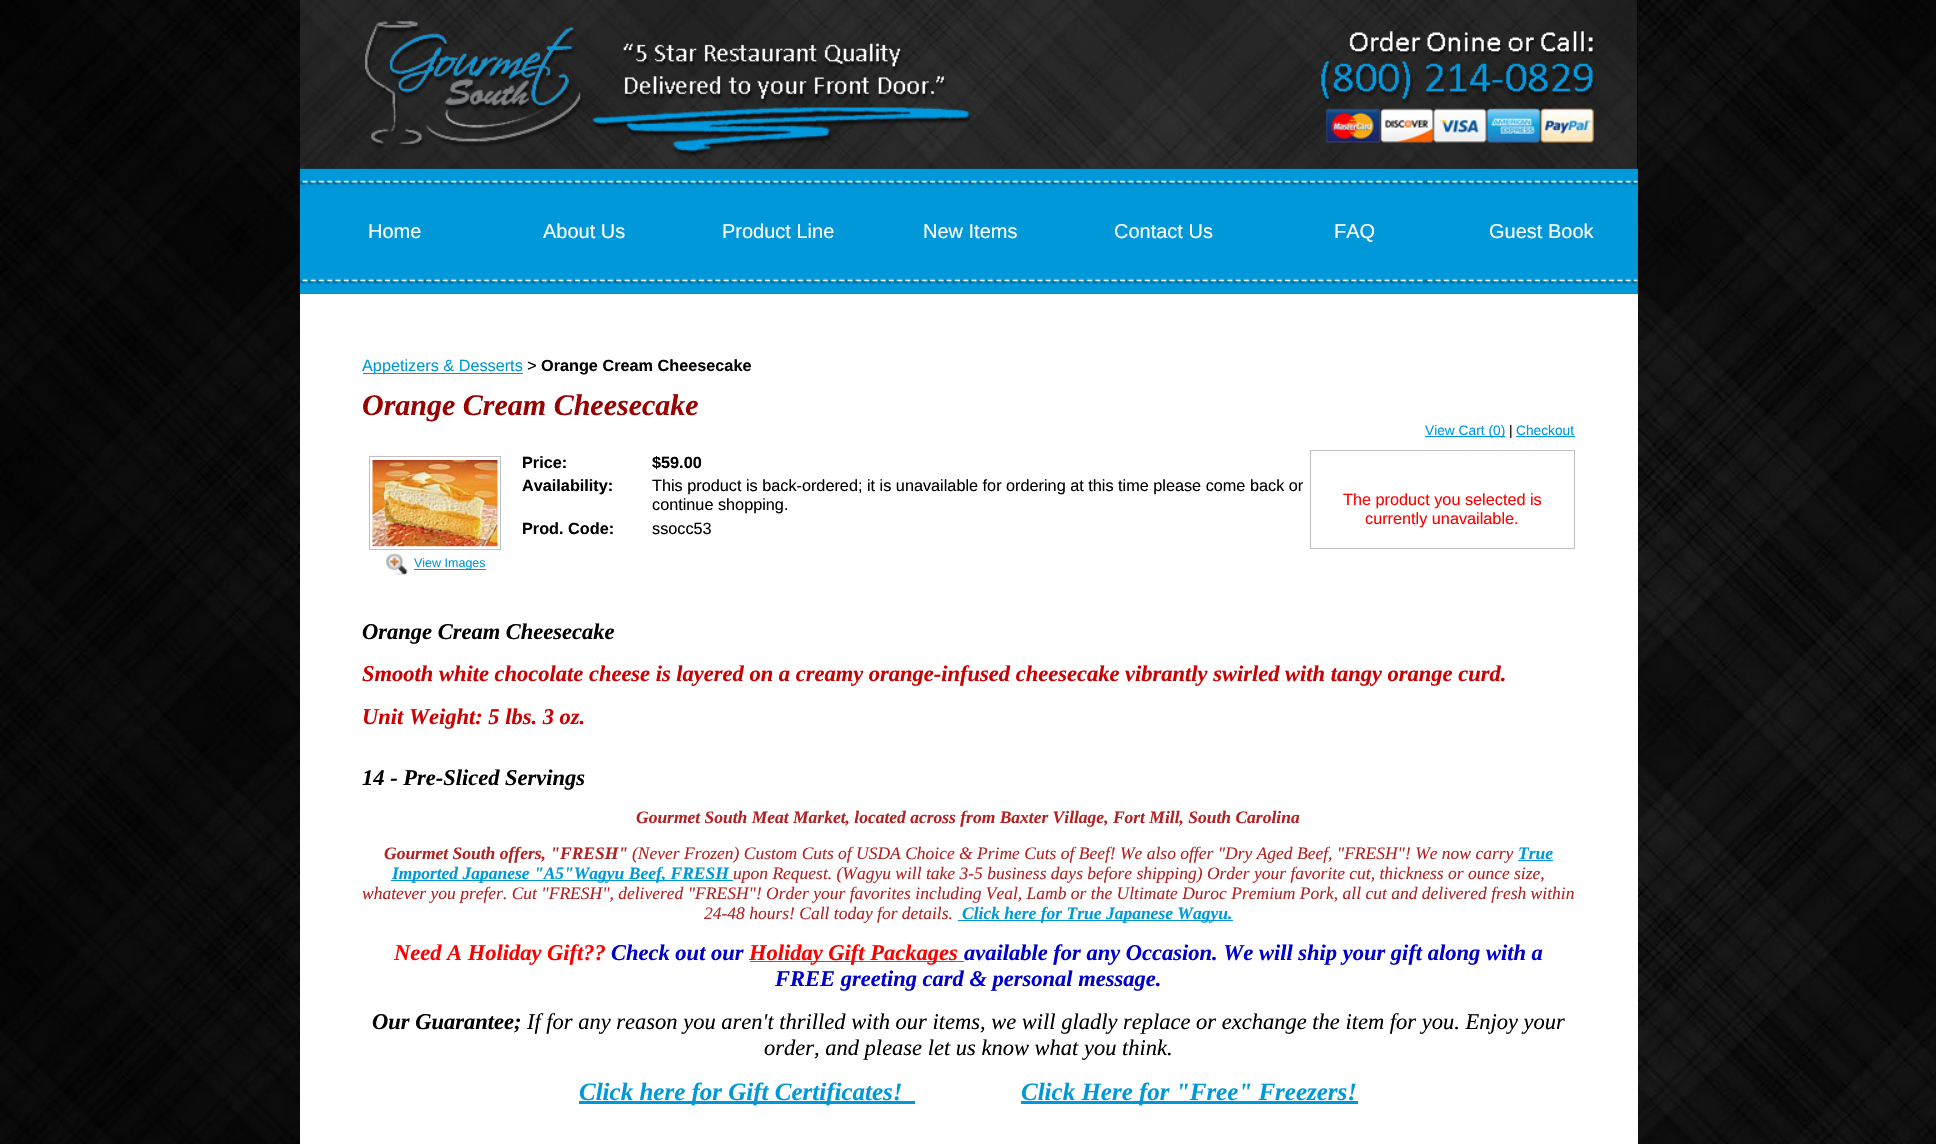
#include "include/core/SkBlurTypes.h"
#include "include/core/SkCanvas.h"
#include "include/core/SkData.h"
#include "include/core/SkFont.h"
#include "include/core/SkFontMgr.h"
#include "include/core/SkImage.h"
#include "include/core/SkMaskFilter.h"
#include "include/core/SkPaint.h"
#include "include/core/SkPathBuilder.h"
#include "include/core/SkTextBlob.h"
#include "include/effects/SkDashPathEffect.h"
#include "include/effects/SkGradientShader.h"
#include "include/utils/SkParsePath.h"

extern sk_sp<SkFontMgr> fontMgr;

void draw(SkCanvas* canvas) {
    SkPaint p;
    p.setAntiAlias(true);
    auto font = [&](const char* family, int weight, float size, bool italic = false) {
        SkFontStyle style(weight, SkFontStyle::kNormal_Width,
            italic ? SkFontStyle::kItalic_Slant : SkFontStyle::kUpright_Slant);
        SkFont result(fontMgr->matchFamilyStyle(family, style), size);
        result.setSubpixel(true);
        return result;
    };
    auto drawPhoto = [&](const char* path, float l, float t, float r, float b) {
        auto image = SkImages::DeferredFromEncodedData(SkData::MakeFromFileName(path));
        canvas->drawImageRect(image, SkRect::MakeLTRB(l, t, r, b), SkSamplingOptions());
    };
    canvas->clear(0xFFFFFFFF);
    drawPhoto("media/1.png", 0, 0, 1936, 1144);
    p.setColor(0xFF000000);
    canvas->drawRect(SkRect::MakeLTRB(300, 0, 1638, 169), p);
    drawPhoto("media/2.png", 300, 0, 1638, 169);
    p.setColor(0xFF0683B8);
    canvas->drawRect(SkRect::MakeLTRB(300, 169, 1638, 294), p);
    drawPhoto("media/3.png", 300, 168, 1638, 294);
    auto font1 = font("Liberation Sans", 400, 20);
    p.setColor(0xFFFFFFFF);
    {
        const struct { const char* s; float x, y; } items[] = {
            {"Home", 368, 238},
            {"About Us", 543, 238},
            {"Product Line", 722, 238},
            {"New Items", 923, 238},
            {"Contact Us", 1114, 238},
            {"FAQ", 1334, 238},
            {"Guest Book", 1489, 238},
        };
        for (auto [s, x, y] : items) {
            canvas->drawString(s, x, y, font1, p);
        }
    }
    canvas->drawRect(SkRect::MakeLTRB(300, 294, 1638, 1144), p);
    p.setColor(0xFF0098D9);
    canvas->drawRect(SkRect::MakeLTRB(363, 373, 523, 374), p);
    auto font2 = font("Liberation Sans", 400, 16.25f);
    canvas->drawString("Appetizers & Desserts", 362, 371, font2, p);
    auto font3 = font("Liberation Mono", 400, 16.25f);
    p.setColor(0xFF000000);
    canvas->drawString(">", 527, 371, font3, p);
    auto font4 = font("Liberation Sans", 700, 16.25f);
    canvas->drawString("Orange Cream Cheesecake", 541, 371, font4, p);
    auto font5 = font("Liberation Serif", 700, 30, true);
    p.setColor(0xFF990000);
    canvas->drawString("Orange Cream Cheesecake", 362, 415, font5, p);
    p.setColor(0xFF0098D9);
    canvas->drawRect(SkRect::MakeLTRB(1425, 436, 1505, 437), p);
    auto font6 = font("Liberation Sans", 400, 13.75f);
    canvas->drawString("View Cart (0)", 1425, 435, font6, p);
    p.setColor(0xFF000000);
    canvas->drawString("|", 1509, 435, font6, p);
    p.setColor(0xFF0098D9);
    canvas->drawString("Checkout", 1516, 435, font6, p);
    canvas->drawRect(SkRect::MakeLTRB(1516, 436, 1575, 437), p);
    p.setColor(0xFF000000);
    {
        const struct { const char* s; float x, y; } items[] = {
            {"Price:", 522, 468},
            {"$59.00", 652, 468},
            {"Availability:", 522, 491},
        };
        for (auto [s, x, y] : items) {
            canvas->drawString(s, x, y, font4, p);
        }
    }
    canvas->drawString("This product is back-ordered; it is unavailable for ordering at this time please come back or", 652, 491, font2, p);
    canvas->drawString("continue shopping.", 652, 510, font2, p);
    canvas->drawString("Prod. Code:", 522, 534, font4, p);
    canvas->drawString("ssocc53", 652, 534, font2, p);
    p.setStyle(SkPaint::kStroke_Style);
    p.setStrokeWidth(1);
    p.setColor(0xFFC0C0C0);
    canvas->drawRect(SkRect::MakeLTRB(369.5f, 456.5f, 500.5f, 549.5f), p);
    drawPhoto("media/4.png", 372, 460, 498, 547);
    drawPhoto("media/5.png", 386, 553, 408, 575);
    p.setStyle(SkPaint::kFill_Style);
    p.setColor(0xFF0098D9);
    canvas->drawRect(SkRect::MakeLTRB(414, 569, 486, 570), p);
    auto font7 = font("Liberation Sans", 400, 12.5f);
    canvas->drawString("View Images", 414, 567, font7, p);
    p.setStyle(SkPaint::kStroke_Style);
    p.setColor(0xFFC0C0C0);
    canvas->drawRect(SkRect::MakeLTRB(1310.5f, 450.5f, 1574.5f, 548.5f), p);
    p.setStyle(SkPaint::kFill_Style);
    p.setColor(0xFFFF0000);
    canvas->drawString("The product you selected is", 1343, 505, font2, p);
    canvas->drawString("currently unavailable.", 1365, 524, font2, p);
    auto font8 = font("Liberation Serif", 700, 22.5f, true);
    p.setColor(0xFF000000);
    canvas->drawString("Orange Cream Cheesecake", 362, 639, font8, p);
    p.setColor(0xFFCC0000);
    canvas->drawString("Smooth white chocolate cheese is layered on a creamy orange-infused cheesecake vibrantly swirled with tangy orange curd.", 362, 681, font8, p);
    canvas->drawString("Unit Weight: 5 lbs. 3 oz.", 362, 724, font8, p);
    p.setColor(0xFF000000);
    canvas->drawString("14 - Pre-Sliced Servings", 362, 785, font8, p);
    auto font9 = font("Liberation Serif", 700, 17.5f, true);
    p.setColor(0xFFB22222);
    canvas->drawString("Gourmet South Meat Market, located across from Baxter Village, Fort Mill, South Carolina", 636, 823, font9, p);
    canvas->drawString("Gourmet South offers, \"FRESH\"", 384, 859, font9, p);
    auto font10 = font("Liberation Serif", 400, 17.5f, true);
    canvas->drawString("(Never Frozen) Custom Cuts of USDA Choice & Prime Cuts of Beef! We also offer \"Dry Aged Beef, \"FRESH\"! We now carry", 632, 859, font10, p);
    p.setColor(0xFF0098D9);
    canvas->drawString("True", 1518, 859, font9, p);
    canvas->drawRect(SkRect::MakeLTRB(1518, 860, 1553, 861), p);
    canvas->drawRect(SkRect::MakeLTRB(391, 880, 733, 881), p);
    canvas->drawString("Imported Japanese \"A5\"Wagyu Beef, FRESH", 392, 879, font9, p);
    p.setColor(0xFFB22222);
    {
        const struct { const char* s; float x, y; } items[] = {
            {"upon Request. (Wagyu will take 3-5 business days before shipping) Order your favorite cut, thickness or ounce size,", 733, 879},
            {"whatever you prefer. Cut \"FRESH\", delivered \"FRESH\"! Order your favorites including Veal, Lamb or the Ultimate Duroc Premium Pork, all cut and delivered fresh within", 362, 899},
            {"24-48 hours! Call today for details.", 704, 919},
        };
        for (auto [s, x, y] : items) {
            canvas->drawString(s, x, y, font10, p);
        }
    }
    p.setColor(0xFF0098D9);
    canvas->drawRect(SkRect::MakeLTRB(958, 920, 1233, 921), p);
    canvas->drawString("Click here for True Japanese Wagyu.", 962, 919, font9, p);
    p.setColor(0xFFFF0000);
    canvas->drawString("Need A Holiday Gift?\077", 394, 960, font8, p);
    p.setColor(0xFF0000CC);
    canvas->drawString("Check out our", 611, 960, font8, p);
    p.setColor(0xFF40883D);
    canvas->drawRect(SkRect::MakeLTRB(750, 961, 964, 962), p);
    p.setColor(0xFFFF0000);
    canvas->drawString("Holiday Gift Packages", 749, 960, font8, p);
    p.setColor(0xFF0000CC);
    canvas->drawString("available for any Occasion. We will ship your gift along with a", 964, 960, font8, p);
    canvas->drawString("FREE greeting card & personal message.", 775, 986, font8, p);
    p.setColor(0xFF000000);
    canvas->drawString("Our Guarantee;", 372, 1029, font8, p);
    auto font11 = font("Liberation Serif", 400, 22.5f, true);
    canvas->drawString("If for any reason you aren't thrilled with our items, we will gladly replace or exchange the item for you. Enjoy your", 527, 1029, font11, p);
    canvas->drawString("order, and please let us know what you think.", 764, 1055, font11, p);
    p.setColor(0xFF0098D9);
    canvas->drawRect(SkRect::MakeLTRB(579, 1101, 915, 1104), p);
    auto font12 = font("Liberation Serif", 700, 25, true);
    canvas->drawString("Click here for Gift Certificates!", 579, 1100, font12, p);
    canvas->drawRect(SkRect::MakeLTRB(1021, 1101, 1358, 1104), p);
    canvas->drawString("Click Here for \"Free\" Freezers!", 1021, 1100, font12, p);
}
